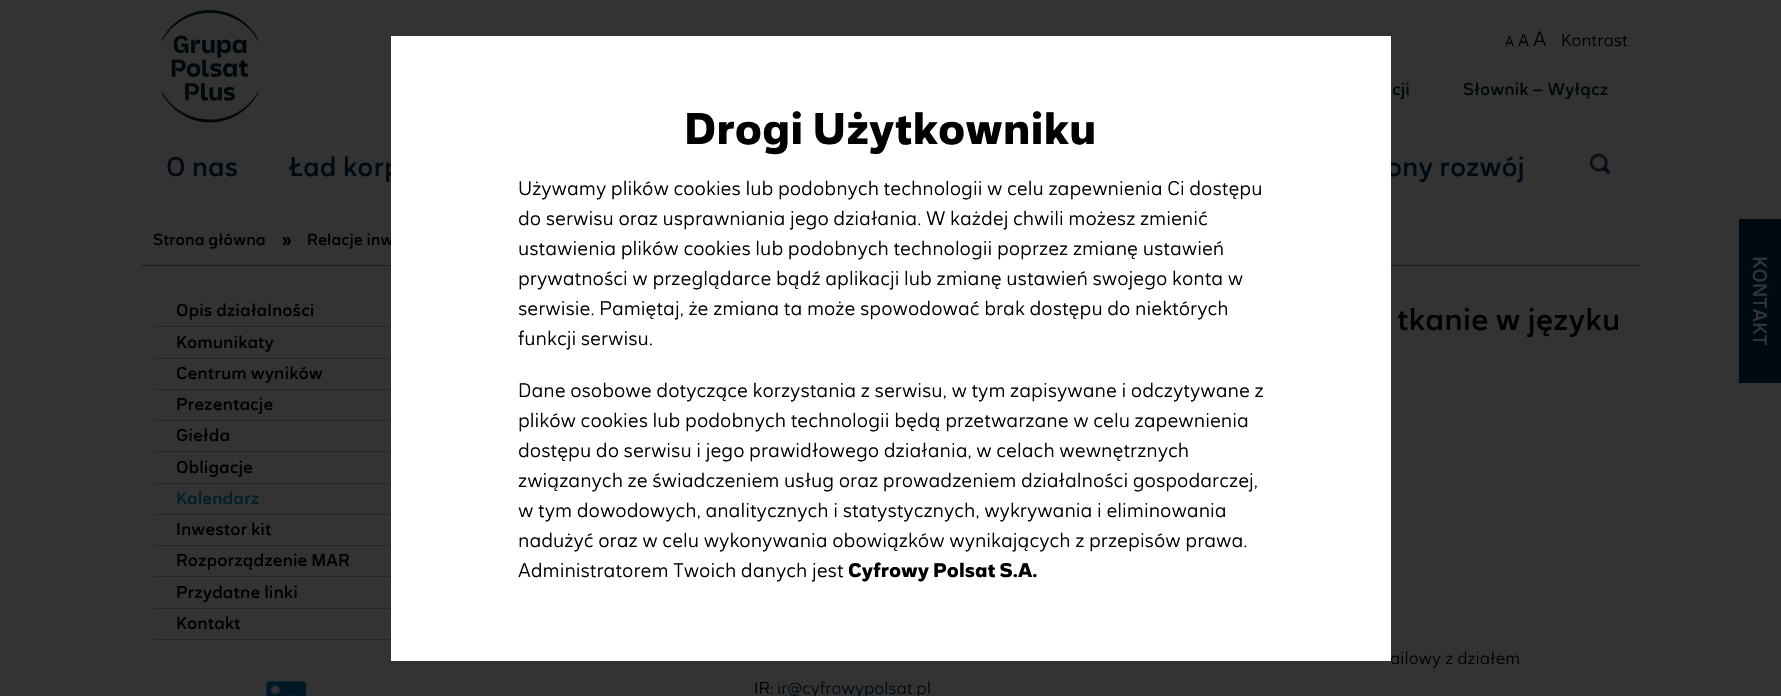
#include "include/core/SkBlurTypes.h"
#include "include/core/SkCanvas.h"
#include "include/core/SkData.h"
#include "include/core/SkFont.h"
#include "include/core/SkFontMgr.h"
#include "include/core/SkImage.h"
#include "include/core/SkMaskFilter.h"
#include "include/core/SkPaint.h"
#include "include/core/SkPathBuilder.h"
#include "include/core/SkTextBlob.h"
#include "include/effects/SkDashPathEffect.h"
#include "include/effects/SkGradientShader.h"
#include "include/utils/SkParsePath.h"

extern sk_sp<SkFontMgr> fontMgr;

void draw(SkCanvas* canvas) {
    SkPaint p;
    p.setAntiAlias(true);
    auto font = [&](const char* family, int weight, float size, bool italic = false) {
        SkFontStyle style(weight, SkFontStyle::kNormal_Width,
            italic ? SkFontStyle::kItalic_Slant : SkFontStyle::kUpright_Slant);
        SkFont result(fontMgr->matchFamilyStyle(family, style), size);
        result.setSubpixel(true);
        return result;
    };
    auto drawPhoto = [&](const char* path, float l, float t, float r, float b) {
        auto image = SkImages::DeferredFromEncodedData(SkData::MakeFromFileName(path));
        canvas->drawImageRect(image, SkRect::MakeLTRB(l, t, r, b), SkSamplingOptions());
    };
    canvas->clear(0xFF333333);
    drawPhoto("media/1.png", 161, 10, 259, 123);
    auto font1 = font("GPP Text", 300, 14);
    p.setColor(0xFF000000);
    canvas->drawString("A", 1505, 46, font1, p);
    auto font2 = font("GPP Text", 300, 17.5f);
    canvas->drawString("A", 1518, 46, font2, p);
    auto font3 = font("GPP Text", 300, 21);
    canvas->drawString("A", 1533, 46, font3, p);
    canvas->drawString("Kontrast", 1561, 46, font2, p);
    auto font4 = font("GPP Text", 400, 17.5f);
    p.setColor(0xFF00080C);
    canvas->drawString("cji", 1392, 95, font4, p);
    canvas->drawString("Słownik – Wyłącz", 1463, 95, font4, p);
    auto font5 = font("GPP Text", 400, 27.5f);
    p.setColor(0xFF000A13);
    {
        const struct { const char* s; float x, y; } items[] = {
            {"O nas", 166, 176},
            {"Ład korp", 288, 176},
            {"ony rozwój", 1386, 176},
        };
        for (auto [s, x, y] : items) {
            canvas->drawString(s, x, y, font5, p);
        }
    }
    drawPhoto("media/2.png", 1589, 153, 1611, 174);
    p.setColor(0xFF1F1F1F);
    canvas->drawRect(SkRect::MakeLTRB(141, 265, 1641, 266), p);
    auto font6 = font("GPP Text", 400, 16.25f);
    p.setColor(0xFF000000);
    canvas->drawString("Strona główna", 153, 245, font6, p);
    auto font7 = font("GPP Text", 700, 16.25f);
    canvas->drawString("»", 282, 245, font7, p);
    canvas->drawString("Relacje inw", 307, 245, font6, p);
    p.setColor(0xFF252525);
    canvas->drawRect(SkRect::MakeLTRB(154, 326, 391, 327), p);
    p.setColor(0xFF000000);
    canvas->drawString("Opis działalności", 176, 316, font4, p);
    p.setColor(0xFF252525);
    canvas->drawRect(SkRect::MakeLTRB(154, 358, 391, 359), p);
    p.setColor(0xFF000000);
    canvas->drawString("Komunikaty", 176, 348, font4, p);
    p.setColor(0xFF252525);
    canvas->drawRect(SkRect::MakeLTRB(154, 389, 391, 390), p);
    p.setColor(0xFF000000);
    canvas->drawString("Centrum wyników", 176, 379, font4, p);
    p.setColor(0xFF252525);
    canvas->drawRect(SkRect::MakeLTRB(154, 420, 391, 421), p);
    p.setColor(0xFF000000);
    canvas->drawString("Prezentacje", 176, 410, font4, p);
    p.setColor(0xFF252525);
    canvas->drawRect(SkRect::MakeLTRB(154, 451, 391, 452), p);
    p.setColor(0xFF000000);
    canvas->drawString("Giełda", 176, 441, font4, p);
    p.setColor(0xFF252525);
    canvas->drawRect(SkRect::MakeLTRB(154, 483, 391, 484), p);
    p.setColor(0xFF000000);
    canvas->drawString("Obligacje", 176, 473, font4, p);
    p.setColor(0xFF252525);
    canvas->drawRect(SkRect::MakeLTRB(154, 514, 391, 515), p);
    p.setColor(0xFF001D2B);
    canvas->drawString("Kalendarz", 176, 504, font4, p);
    p.setColor(0xFF252525);
    canvas->drawRect(SkRect::MakeLTRB(154, 545, 391, 546), p);
    p.setColor(0xFF000000);
    canvas->drawString("Inwestor kit", 176, 535, font4, p);
    p.setColor(0xFF252525);
    canvas->drawRect(SkRect::MakeLTRB(154, 576, 391, 577), p);
    p.setColor(0xFF000000);
    canvas->drawString("Rozporządzenie MAR", 176, 566, font4, p);
    p.setColor(0xFF252525);
    canvas->drawRect(SkRect::MakeLTRB(154, 608, 391, 609), p);
    p.setColor(0xFF000000);
    canvas->drawString("Przydatne linki", 176, 598, font4, p);
    p.setColor(0xFF252525);
    canvas->drawRect(SkRect::MakeLTRB(154, 639, 391, 640), p);
    p.setColor(0xFF000000);
    canvas->drawString("Kontakt", 176, 629, font4, p);
    drawPhoto("media/3.png", 266, 681, 307, 696);
    auto font8 = font("GPP Text", 400, 31.25f);
    canvas->drawString("tkanie w języku", 1397, 330, font8, p);
    canvas->drawString("ailowy z działem", 1390, 664, font2, p);
    canvas->drawString("IR:", 754, 694, font2, p);
    p.setColor(0xFF000A13);
    canvas->drawString("ir@cyfrowypolsat.pl", 777, 694, font2, p);
    canvas->drawRect(SkRect::MakeLTRB(1739, 219, 1781, 383), p);
    auto font9 = font("GPP Text", 400, 20);
    p.setColor(0xFF333333);
    canvas->save();
    canvas->rotate(90, 1753, 256);
    canvas->drawString("KONTAKT", 1753, 256, font9, p);
    canvas->restore();
    p.setColor(0xFFFFFFFF);
    canvas->drawRect(SkRect::MakeLTRB(391, 36, 1391, 661), p);
    auto font10 = font("GPP Text", 700, 45);
    p.setColor(0xFF000000);
    canvas->drawString("Drogi Użytkowniku", 684, 144, font10, p);
    auto font11 = font("GPP Text", 300, 20);
    {
        const struct { const char* s; float x, y; } items[] = {
            {"Używamy plików cookies lub podobnych technologii w celu zapewnienia Ci dostępu", 518, 195},
            {"do serwisu oraz usprawniania jego działania. W każdej chwili możesz zmienić", 518, 225},
            {"ustawienia plików cookies lub podobnych technologii poprzez zmianę ustawień", 518, 255},
            {"prywatności w przeglądarce bądź aplikacji lub zmianę ustawień swojego konta w", 518, 285},
            {"serwisie. Pamiętaj, że zmiana ta może spowodować brak dostępu do niektórych", 518, 315},
            {"funkcji serwisu.", 518, 345},
            {"Dane osobowe dotyczące korzystania z serwisu, w tym zapisywane i odczytywane z", 518, 397},
            {"plików cookies lub podobnych technologii będą przetwarzane w celu zapewnienia", 518, 427},
            {"dostępu do serwisu i jego prawidłowego działania, w celach wewnętrznych", 518, 457},
            {"związanych ze świadczeniem usług oraz prowadzeniem działalności gospodarczej,", 518, 487},
            {"w tym dowodowych, analitycznych i statystycznych, wykrywania i eliminowania", 518, 517},
            {"nadużyć oraz w celu wykonywania obowiązków wynikających z przepisów prawa.", 518, 547},
            {"Administratorem Twoich danych jest", 518, 577},
        };
        for (auto [s, x, y] : items) {
            canvas->drawString(s, x, y, font11, p);
        }
    }
    auto font12 = font("GPP Text", 700, 20);
    canvas->drawString("Cyfrowy Polsat S.A.", 848, 577, font12, p);
}
